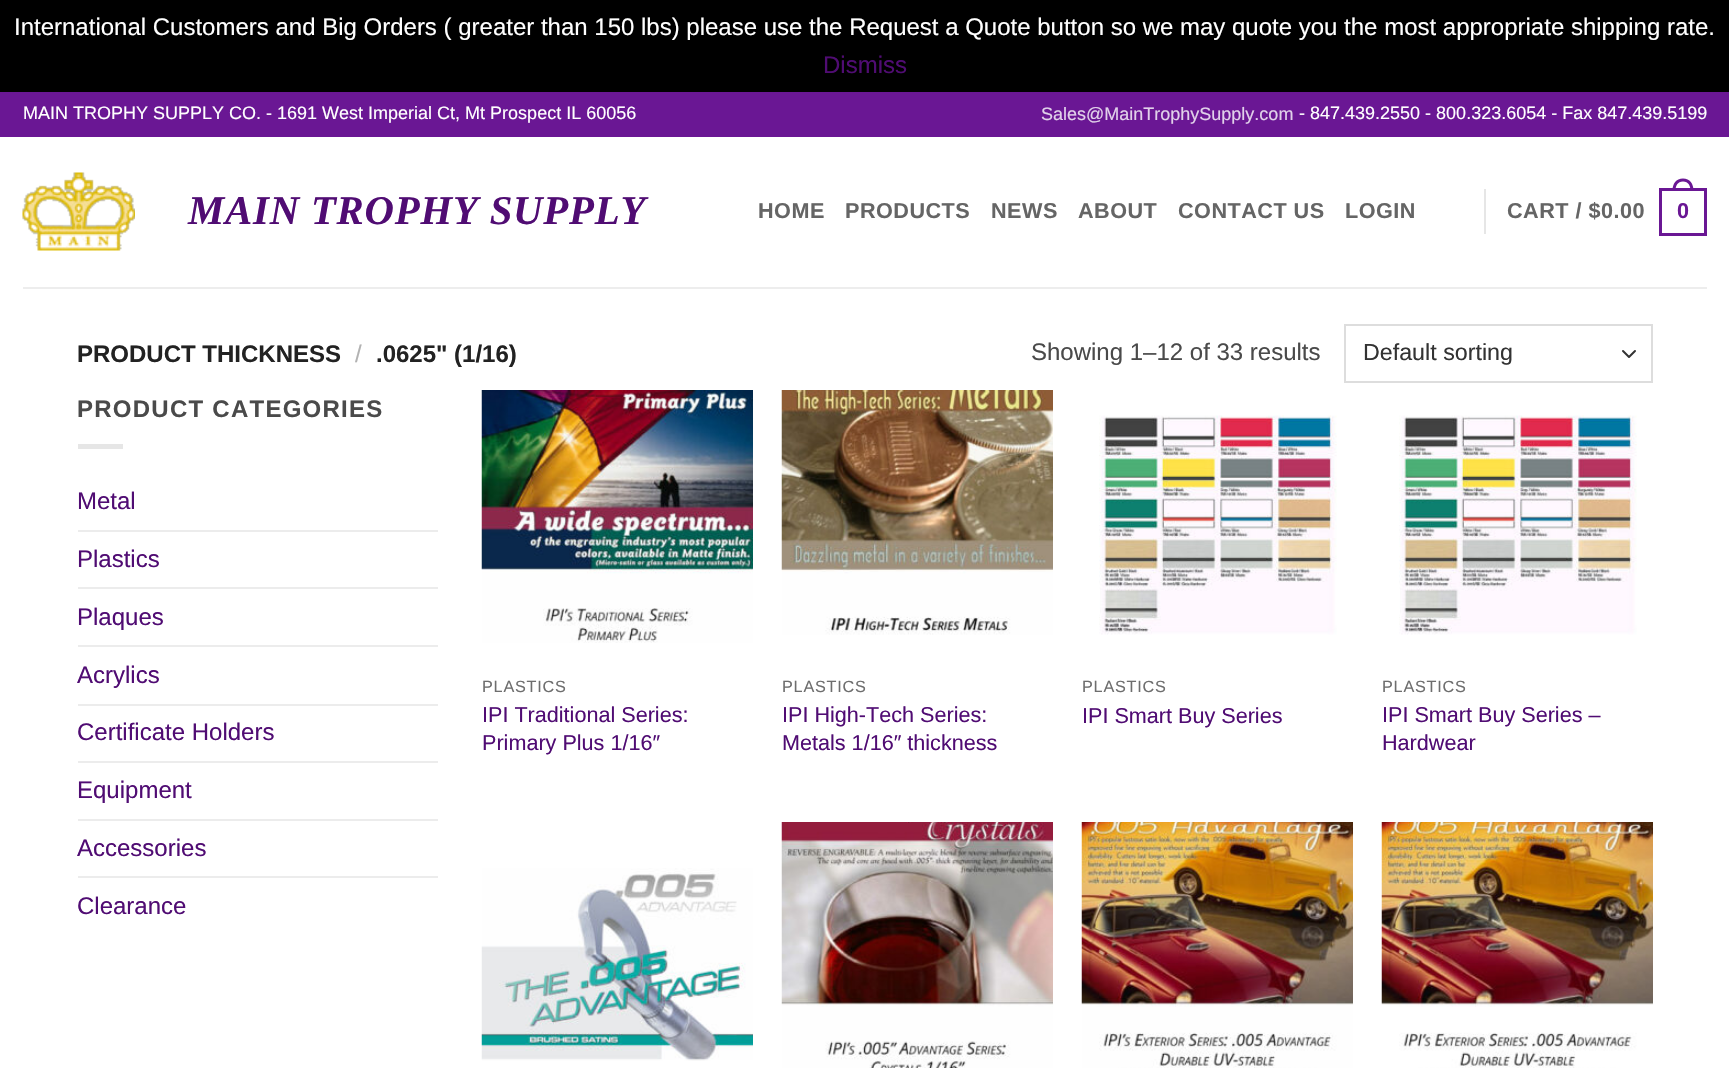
#include "include/core/SkBlurTypes.h"
#include "include/core/SkCanvas.h"
#include "include/core/SkData.h"
#include "include/core/SkFont.h"
#include "include/core/SkFontMgr.h"
#include "include/core/SkImage.h"
#include "include/core/SkMaskFilter.h"
#include "include/core/SkPaint.h"
#include "include/core/SkPathBuilder.h"
#include "include/core/SkTextBlob.h"
#include "include/effects/SkDashPathEffect.h"
#include "include/effects/SkGradientShader.h"
#include "include/utils/SkParsePath.h"

extern sk_sp<SkFontMgr> fontMgr;

void draw(SkCanvas* canvas) {
    SkPaint p;
    p.setAntiAlias(true);
    auto font = [&](const char* family, int weight, float size, bool italic = false) {
        SkFontStyle style(weight, SkFontStyle::kNormal_Width,
            italic ? SkFontStyle::kItalic_Slant : SkFontStyle::kUpright_Slant);
        SkFont result(fontMgr->matchFamilyStyle(family, style), size);
        result.setSubpixel(true);
        return result;
    };
    auto drawTracked = [&](const char* s, float x, float y, const SkFont& font, const SkPaint& ink, float letter, float word) {
        std::vector<SkGlyphID> glyphs(font.countText(s, strlen(s), SkTextEncoding::kUTF8));
        std::vector<float> xs(glyphs.size());
        font.textToGlyphs(s, strlen(s), SkTextEncoding::kUTF8, glyphs);
        font.getXPos(glyphs, xs, x);
        float extra = 0;
        for (size_t i = 0; i < glyphs.size(); i++) {
            xs[i] += extra;
            extra += letter + word * (glyphs[i] == font.unicharToGlyph(' '));
        }
        canvas->drawTextBlob(SkTextBlob::MakeFromPosHGlyphs(glyphs, xs, y, font), 0, 0, ink);
    };
    auto drawPhoto = [&](const char* path, float l, float t, float r, float b) {
        auto image = SkImages::DeferredFromEncodedData(SkData::MakeFromFileName(path));
        canvas->drawImageRect(image, SkRect::MakeLTRB(l, t, r, b), SkSamplingOptions());
    };
    canvas->clear(0xFFFFFFFF);
    p.setColor(0xFF000000);
    canvas->drawRect(SkRect::MakeLTRB(0, 0, 1729, 92), p);
    auto font1 = font("Liberation Sans", 400, 24);
    p.setColor(0xFFFFFFFF);
    canvas->drawString("International Customers and Big Orders ( greater than 150 lbs) please use the Request a Quote button so we may quote you the most appropriate shipping rate.", 14, 35, font1, p);
    p.setColor(0xFF500C73);
    canvas->drawString("Dismiss", 823, 73, font1, p);
    p.setColor(0xFF6A1794);
    canvas->drawRect(SkRect::MakeLTRB(0, 92, 1729, 137), p);
    auto font2 = font("Liberation Sans", 400, 18);
    p.setColor(0xFFFFFFFF);
    canvas->drawString("MAIN TROPHY SUPPLY CO. - 1691 West Imperial Ct, Mt Prospect IL 60056", 23, 119, font2, p);
    p.setColor(0xFFE1D1EA);
    canvas->drawString("Sales@MainTrophySupply.com", 1041, 120, font2, p);
    p.setColor(0xFFFFFFFF);
    canvas->drawString("- 847.439.2550 - 800.323.6054 - Fax 847.439.5199", 1299, 119, font2, p);
    drawPhoto("media/1.png", 22, 172, 135, 251);
    auto font3 = font("Liberation Serif", 700, 40.75f, true);
    p.setColor(0xFF500C73);
    drawTracked("MAIN TROPHY SUPPLY", 188, 224, font3, p, 0.8f, 0);
    auto font4 = font("Liberation Sans", 700, 21.6f);
    p.setColor(0xFF656565);
    {
        const struct { const char* s; float x, y; } items[] = {
            {"HOME", 758, 218},
            {"PRODUCTS", 845, 218},
            {"NEWS", 991, 218},
            {"ABOUT", 1078, 218},
            {"CONTACT US", 1178, 218},
            {"LOGIN", 1345, 218},
        };
        for (auto [s, x, y] : items) {
            drawTracked(s, x, y, font4, p, 0.5f, 0);
        }
    }
    p.setColor(0xFFE6E6E6);
    canvas->drawRect(SkRect::MakeLTRB(1484, 189, 1486, 234), p);
    p.setColor(0xFF656565);
    drawTracked("CART / $0.00", 1507, 218, font4, p, 0.5f, 0);
    p.setStyle(SkPaint::kStroke_Style);
    p.setStrokeWidth(3);
    p.setColor(0xFF6A1794);
    canvas->drawRect(SkRect::MakeLTRB(1660.5f, 189.5f, 1705.5f, 234.5f), p);
    p.setStyle(SkPaint::kFill_Style);
    canvas->drawPath(SkPathBuilder(SkPathFillType::kEvenOdd).moveTo(1683, 178.5f).cubicTo(1690, 178.5f, 1693.5f, 184, 1693.5f, 190.5f).lineTo(1672.5f, 190.5f).cubicTo(1672.5f, 184, 1676, 178.5f, 1683, 178.5f).close().moveTo(1683, 181.5f).cubicTo(1688.5f, 181.5f, 1690.5f, 186, 1690.5f, 190.5f).lineTo(1675.5f, 190.5f).cubicTo(1675.5f, 186, 1677.5f, 181.5f, 1683, 181.5f).close().detach(), p);
    drawTracked("0", 1677, 218, font4, p, 0.5f, 0);
    p.setColor(0xFFEDEDED);
    canvas->drawRect(SkRect::MakeLTRB(23, 287, 1707, 289), p);
    auto font5 = font("Liberation Sans", 700, 24);
    p.setColor(0xFF222222);
    canvas->drawString("PRODUCT THICKNESS", 77, 362, font5, p);
    p.setColor(0xFFB2B2B2);
    canvas->drawString("/", 355, 362, font1, p);
    p.setColor(0xFF222222);
    canvas->drawString(".0625\" (1/16)", 376, 362, font5, p);
    p.setColor(0xFF4A4A4A);
    canvas->drawString("Showing 1–12 of 33 results", 1031, 360, font1, p);
    p.setStyle(SkPaint::kStroke_Style);
    p.setStrokeWidth(2);
    p.setStrokeCap(SkPaint::kRound_Cap);
    p.setStrokeJoin(SkPaint::kRound_Join);
    p.setColor(0xFF333333);
    canvas->drawPath(SkPathBuilder().moveTo(1623, 351).lineTo(1629, 357).lineTo(1635, 351).detach(), p);
    p.setStrokeCap(SkPaint::kButt_Cap);
    p.setStrokeJoin(SkPaint::kMiter_Join);
    p.setColor(0xFFDDDDDD);
    canvas->drawRect(SkRect::MakeLTRB(1345, 325, 1652, 382), p);
    auto font6 = font("Liberation Sans", 400, 23.25f);
    p.setStyle(SkPaint::kFill_Style);
    p.setColor(0xFF333333);
    canvas->drawString("Default sorting", 1363, 360, font6, p);
    p.setColor(0xFF4A4A4A);
    drawTracked("PRODUCT CATEGORIES", 77, 417, font5, p, 1.25f, 0);
    p.setColor(0xFFE6E6E6);
    canvas->drawRect(SkRect::MakeLTRB(78, 444, 123, 449), p);
    p.setColor(0xFF500C73);
    canvas->drawString("Metal", 77, 509, font1, p);
    p.setColor(0xFFECECEC);
    canvas->drawRect(SkRect::MakeLTRB(78, 530, 438, 532), p);
    p.setColor(0xFF500C73);
    canvas->drawString("Plastics", 77, 567, font1, p);
    p.setColor(0xFFECECEC);
    canvas->drawRect(SkRect::MakeLTRB(78, 587, 438, 589), p);
    p.setColor(0xFF500C73);
    canvas->drawString("Plaques", 77, 625, font1, p);
    p.setColor(0xFFECECEC);
    canvas->drawRect(SkRect::MakeLTRB(78, 645, 438, 647), p);
    p.setColor(0xFF500C73);
    canvas->drawString("Acrylics", 77, 683, font1, p);
    p.setColor(0xFFECECEC);
    canvas->drawRect(SkRect::MakeLTRB(78, 704, 438, 706), p);
    p.setColor(0xFF500C73);
    canvas->drawString("Certificate Holders", 77, 740, font1, p);
    p.setColor(0xFFECECEC);
    canvas->drawRect(SkRect::MakeLTRB(78, 761, 438, 763), p);
    p.setColor(0xFF500C73);
    canvas->drawString("Equipment", 77, 798, font1, p);
    p.setColor(0xFFECECEC);
    canvas->drawRect(SkRect::MakeLTRB(78, 819, 438, 821), p);
    p.setColor(0xFF500C73);
    canvas->drawString("Accessories", 77, 856, font1, p);
    p.setColor(0xFFECECEC);
    canvas->drawRect(SkRect::MakeLTRB(78, 876, 438, 878), p);
    p.setColor(0xFF500C73);
    canvas->drawString("Clearance", 77, 914, font1, p);
    drawPhoto("media/2.png", 481, 390, 753, 643);
    auto font7 = font("Liberation Sans", 400, 16.25f);
    p.setColor(0xFF6E6E6E);
    drawTracked("PLASTICS", 482, 692, font7, p, 0.75f, 0);
    auto font8 = font("Liberation Sans", 400, 21.6f);
    p.setColor(0xFF500C73);
    canvas->drawString("IPI Traditional Series:", 482, 722, font8, p);
    canvas->drawString("Primary Plus 1/16″", 482, 750, font8, p);
    drawPhoto("media/3.png", 781, 390, 1053, 635);
    p.setColor(0xFF6E6E6E);
    drawTracked("PLASTICS", 782, 692, font7, p, 0.75f, 0);
    p.setColor(0xFF500C73);
    canvas->drawString("IPI High-Tech Series:", 782, 722, font8, p);
    canvas->drawString("Metals 1/16″ thickness", 782, 750, font8, p);
    drawPhoto("media/4.png", 1099, 415, 1337, 635);
    p.setColor(0xFF6E6E6E);
    drawTracked("PLASTICS", 1082, 692, font7, p, 0.75f, 0);
    p.setColor(0xFF500C73);
    canvas->drawString("IPI Smart Buy Series", 1082, 723, font8, p);
    drawPhoto("media/4.png", 1399, 415, 1637, 635);
    p.setColor(0xFF6E6E6E);
    drawTracked("PLASTICS", 1382, 692, font7, p, 0.75f, 0);
    p.setColor(0xFF500C73);
    canvas->drawString("IPI Smart Buy Series –", 1382, 722, font8, p);
    canvas->drawString("Hardwear", 1382, 750, font8, p);
    drawPhoto("media/5.png", 481, 868, 753, 1061);
    drawPhoto("media/6.png", 781, 822, 1053, 1068);
    drawPhoto("media/7.png", 1081, 822, 1353, 1068);
    drawPhoto("media/8.png", 1381, 822, 1653, 1068);
}
